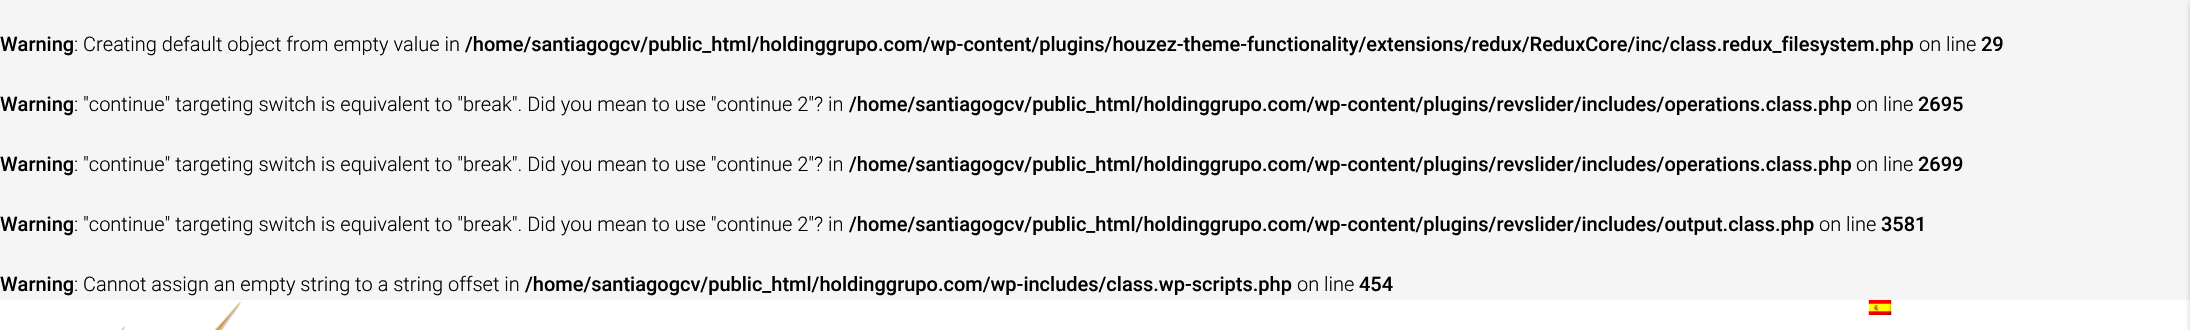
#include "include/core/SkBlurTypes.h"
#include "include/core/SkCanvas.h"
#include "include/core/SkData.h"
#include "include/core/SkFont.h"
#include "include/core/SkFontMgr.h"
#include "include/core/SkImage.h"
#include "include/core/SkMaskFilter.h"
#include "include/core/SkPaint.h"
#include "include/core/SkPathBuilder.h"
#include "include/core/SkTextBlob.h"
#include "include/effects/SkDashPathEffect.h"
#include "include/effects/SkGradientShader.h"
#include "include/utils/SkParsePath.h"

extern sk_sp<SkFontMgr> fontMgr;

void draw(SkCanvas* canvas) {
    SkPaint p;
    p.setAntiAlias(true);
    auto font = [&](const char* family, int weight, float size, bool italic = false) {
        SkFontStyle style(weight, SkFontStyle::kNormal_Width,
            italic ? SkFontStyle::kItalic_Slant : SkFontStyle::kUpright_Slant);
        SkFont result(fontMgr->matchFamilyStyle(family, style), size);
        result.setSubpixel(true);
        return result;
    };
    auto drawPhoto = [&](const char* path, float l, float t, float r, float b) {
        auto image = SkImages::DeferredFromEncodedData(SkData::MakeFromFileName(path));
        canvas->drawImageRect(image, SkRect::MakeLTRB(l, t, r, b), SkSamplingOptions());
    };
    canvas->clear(0xFFF5F5F5);
    auto font1 = font("Roboto", 500, 20);
    p.setColor(0xFF000000);
    canvas->drawString("Warning", 0, 51, font1, p);
    auto font2 = font("Roboto", 300, 20);
    canvas->drawString(": Creating default object from empty value in", 74, 51, font2, p);
    canvas->drawString("/home/santiagogcv/public_html/holdinggrupo.com/wp-content/plugins/houzez-theme-functionality/extensions/redux/ReduxCore/inc/class.redux_filesystem.php", 465, 51, font1, p);
    canvas->drawString("on line", 1919, 51, font2, p);
    canvas->drawString("29", 1981, 51, font1, p);
    p.setColor(0xFFFFFFFF);
    canvas->drawRect(SkRect::MakeLTRB(0, 300, 2190, 330), p);
    p.setColor(0x33000000);
    p.setMaskFilter(SkMaskFilter::MakeBlur(kNormal_SkBlurStyle, 2.5f));
    canvas->drawRect(SkRect::MakeLTRB(2190, 3, 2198, 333), p);
    p.setMaskFilter(nullptr);
    p.setColor(0xFF000000);
    canvas->drawString("Warning", 0, 111, font1, p);
    canvas->drawString(": \"continue\" targeting switch is equivalent to \"break\". Did you mean to use \"continue 2\"? in", 74, 111, font2, p);
    canvas->drawString("/home/santiagogcv/public_html/holdinggrupo.com/wp-content/plugins/revslider/includes/operations.class.php", 849, 111, font1, p);
    canvas->drawString("on line", 1856, 111, font2, p);
    canvas->drawString("2695", 1918, 111, font1, p);
    canvas->drawString("Warning", 0, 171, font1, p);
    canvas->drawString(": \"continue\" targeting switch is equivalent to \"break\". Did you mean to use \"continue 2\"? in", 74, 171, font2, p);
    canvas->drawString("/home/santiagogcv/public_html/holdinggrupo.com/wp-content/plugins/revslider/includes/operations.class.php", 849, 171, font1, p);
    canvas->drawString("on line", 1856, 171, font2, p);
    canvas->drawString("2699", 1918, 171, font1, p);
    canvas->drawString("Warning", 0, 231, font1, p);
    canvas->drawString(": \"continue\" targeting switch is equivalent to \"break\". Did you mean to use \"continue 2\"? in", 74, 231, font2, p);
    canvas->drawString("/home/santiagogcv/public_html/holdinggrupo.com/wp-content/plugins/revslider/includes/output.class.php", 849, 231, font1, p);
    canvas->drawString("on line", 1819, 231, font2, p);
    canvas->drawString("3581", 1881, 231, font1, p);
    canvas->drawString("Warning", 0, 291, font1, p);
    canvas->drawString(": Cannot assign an empty string to a string offset in", 74, 291, font2, p);
    canvas->drawString("/home/santiagogcv/public_html/holdinggrupo.com/wp-includes/class.wp-scripts.php", 525, 291, font1, p);
    canvas->drawString("on line", 1297, 291, font2, p);
    canvas->drawString("454", 1359, 291, font1, p);
    drawPhoto("media/1.png", 120, 301, 241, 330);
    drawPhoto("media/2.png", 1868, 300, 1892, 315);
}
